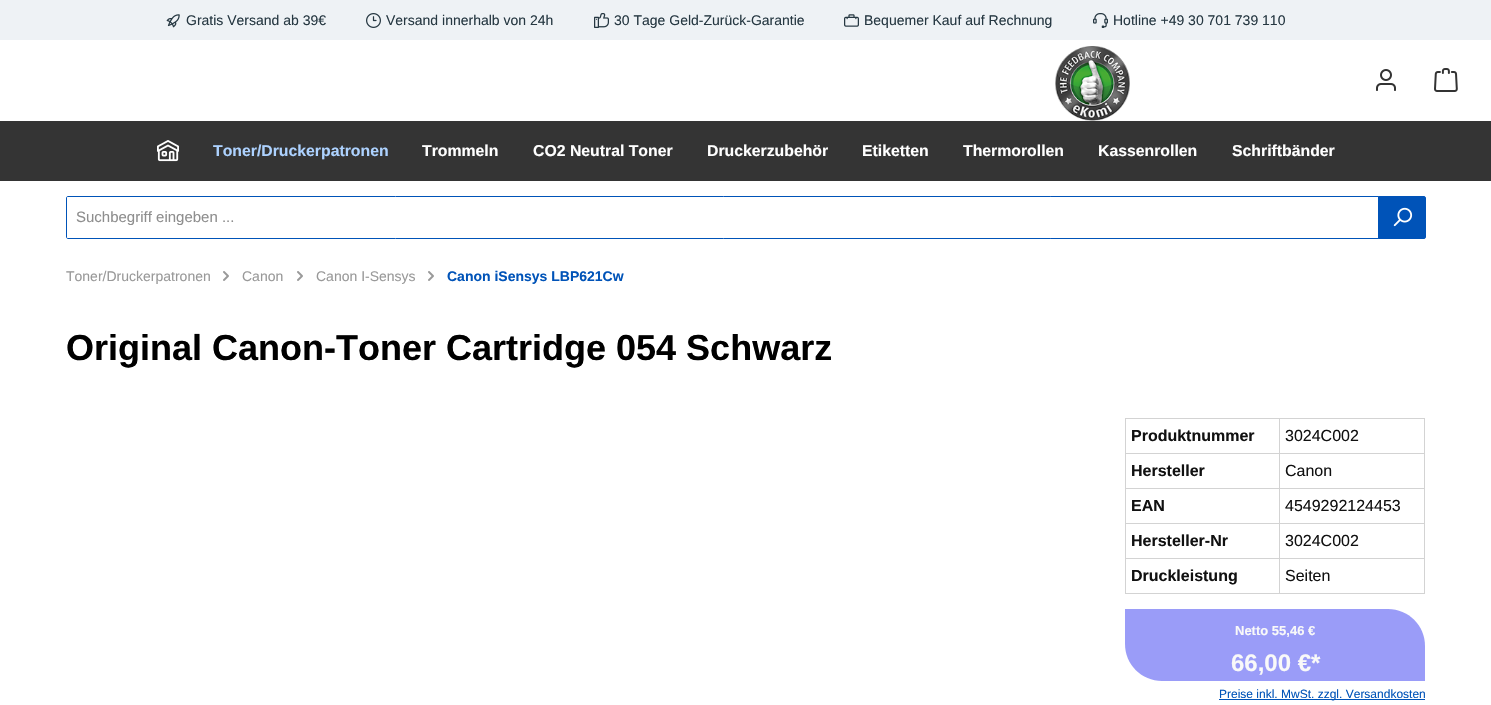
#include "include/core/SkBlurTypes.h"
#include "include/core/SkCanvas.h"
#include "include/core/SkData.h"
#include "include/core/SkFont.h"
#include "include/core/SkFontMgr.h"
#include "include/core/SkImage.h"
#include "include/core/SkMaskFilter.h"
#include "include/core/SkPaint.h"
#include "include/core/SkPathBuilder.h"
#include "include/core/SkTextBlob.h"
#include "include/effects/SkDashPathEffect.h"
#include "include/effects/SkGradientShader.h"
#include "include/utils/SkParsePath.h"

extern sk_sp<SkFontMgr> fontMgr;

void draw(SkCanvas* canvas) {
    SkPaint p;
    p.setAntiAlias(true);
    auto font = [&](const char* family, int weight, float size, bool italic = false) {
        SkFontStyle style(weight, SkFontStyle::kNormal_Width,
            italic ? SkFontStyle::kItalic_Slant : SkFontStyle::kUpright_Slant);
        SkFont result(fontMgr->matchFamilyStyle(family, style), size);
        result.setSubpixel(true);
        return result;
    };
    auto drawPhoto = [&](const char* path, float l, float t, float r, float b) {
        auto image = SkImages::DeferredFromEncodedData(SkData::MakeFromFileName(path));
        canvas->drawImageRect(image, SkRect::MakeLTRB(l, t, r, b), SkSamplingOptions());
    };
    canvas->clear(0xFFFFFFFF);
    p.setColor(0xFFEEF2F5);
    canvas->drawRect(SkRect::MakeLTRB(0, 0, 1491, 40), p);
    drawPhoto("media/1.png", 166, 14, 180, 28);
    auto font1 = font("Liberation Sans", 400, 14);
    p.setColor(0xFF263842);
    canvas->drawString("Gratis Versand ab 39€", 186, 25, font1, p);
    drawPhoto("media/2.png", 366, 13, 381, 28);
    canvas->drawString("Versand innerhalb von 24h", 386, 25, font1, p);
    drawPhoto("media/3.png", 594, 13, 609, 28);
    canvas->drawString("30 Tage Geld-Zurück-Garantie", 614, 25, font1, p);
    drawPhoto("media/4.png", 844, 14, 859, 27);
    canvas->drawString("Bequemer Kauf auf Rechnung", 864, 25, font1, p);
    drawPhoto("media/5.png", 1093, 13, 1108, 28);
    canvas->drawString("Hotline +49 30 701 739 110", 1113, 25, font1, p);
    drawPhoto("media/6.png", 1055, 46, 1130, 121);
    drawPhoto("media/7.png", 1376, 69, 1396, 91);
    drawPhoto("media/8.png", 1434, 68, 1458, 92);
    p.setColor(0xFF343434);
    canvas->drawRect(SkRect::MakeLTRB(0, 121, 1491, 181), p);
    drawPhoto("media/9.png", 157, 140, 179, 162);
    auto font2 = font("Liberation Sans", 700, 15.8f);
    p.setColor(0xFFADD2FF);
    canvas->drawString("Toner/Druckerpatronen", 213, 156, font2, p);
    p.setColor(0xFFFFFFFF);
    {
        const struct { const char* s; float x, y; } items[] = {
            {"Trommeln", 422, 156},
            {"CO2 Neutral Toner", 533, 156},
            {"Druckerzubehör", 707, 156},
            {"Etiketten", 862, 156},
            {"Thermorollen", 963, 156},
            {"Kassenrollen", 1098, 156},
            {"Schriftbänder", 1232, 156},
        };
        for (auto [s, x, y] : items) {
            canvas->drawString(s, x, y, font2, p);
        }
    }
    p.setStyle(SkPaint::kStroke_Style);
    p.setStrokeWidth(1);
    p.setColor(0xFF0053B8);
    canvas->drawPath(SkPathBuilder().moveTo(68, 196.5f).lineTo(1378.5f, 196.5f).lineTo(1378.5f, 238.5f).lineTo(68, 238.5f).cubicTo(67, 238.5f, 66.5f, 238, 66.5f, 237).lineTo(66.5f, 198).cubicTo(66.5f, 197, 67, 196.5f, 68, 196.5f).close().detach(), p);
    auto font3 = font("Liberation Sans", 400, 15);
    p.setStyle(SkPaint::kFill_Style);
    p.setColor(0xFF8E8E8E);
    canvas->drawString("Suchbegriff eingeben ...", 76, 222, font3, p);
    p.setColor(0xFF0053B8);
    canvas->drawPath(SkPathBuilder().moveTo(1378.5f, 196.5f).lineTo(1424, 196.5f).cubicTo(1425, 196.5f, 1425.5f, 197, 1425.5f, 198).lineTo(1425.5f, 237).cubicTo(1425.5f, 238, 1425, 238.5f, 1424, 238.5f).lineTo(1378.5f, 238.5f).close().detach(), p);
    p.setStyle(SkPaint::kStroke_Style);
    canvas->drawPath(SkPathBuilder().moveTo(1378.5f, 196.5f).lineTo(1424, 196.5f).cubicTo(1425, 196.5f, 1425.5f, 197, 1425.5f, 198).lineTo(1425.5f, 237).cubicTo(1425.5f, 238, 1425, 238.5f, 1424, 238.5f).lineTo(1378.5f, 238.5f).close().detach(), p);
    drawPhoto("media/10.png", 1393, 207, 1413, 227);
    p.setStyle(SkPaint::kFill_Style);
    p.setColor(0xFF999999);
    canvas->drawString("Toner/Druckerpatronen", 66, 281, font1, p);
    drawPhoto("media/11.png", 223, 271, 229, 281);
    canvas->drawString("Canon", 242, 281, font1, p);
    drawPhoto("media/11.png", 297, 271, 303, 281);
    canvas->drawString("Canon I-Sensys", 316, 281, font1, p);
    drawPhoto("media/11.png", 428, 271, 434, 281);
    auto font4 = font("Liberation Sans", 700, 14);
    p.setColor(0xFF0053B8);
    canvas->drawString("Canon iSensys LBP621Cw", 447, 281, font4, p);
    auto font5 = font("Liberation Sans", 700, 36);
    p.setColor(0xFF000000);
    canvas->drawString("Original Canon-Toner Cartridge 054 Schwarz", 66, 360, font5, p);
    {
        const struct { float l, t, r, b; SkColor color; } items[] = {
            {1279, 418, 1425, 419, 0xFFD3D3D3},
            {1279, 453, 1425, 454, 0xFFD3D3D3},
            {1279, 488, 1425, 489, 0xFFD3D3D3},
            {1279, 523, 1425, 524, 0xFFD3D3D3},
            {1279, 558, 1425, 559, 0xFFD3D3D3},
            {1424, 558, 1425, 594, 0xFFD3D3D3},
            {1279, 593, 1425, 594, 0xFFD3D3D3},
            {1279, 558, 1280, 594, 0xFFD3D3D3},
            {1125, 558, 1280, 559, 0xFFD3D3D3},
            {1279, 523, 1280, 559, 0xFFD3D3D3},
            {1125, 523, 1280, 524, 0xFFD3D3D3},
            {1279, 488, 1280, 524, 0xFFD3D3D3},
            {1125, 488, 1280, 489, 0xFFD3D3D3},
            {1279, 453, 1280, 489, 0xFFD3D3D3},
            {1125, 453, 1280, 454, 0xFFD3D3D3},
            {1279, 418, 1280, 454, 0xFFD3D3D3},
            {1125, 418, 1280, 419, 0xFFD3D3D3},
            {1125, 593, 1280, 594, 0xFFD3D3D3},
            {1125, 558, 1126, 594, 0xFFD3D3D3},
            {1125, 523, 1126, 559, 0xFFD3D3D3},
            {1125, 488, 1126, 524, 0xFFD3D3D3},
            {1125, 453, 1126, 489, 0xFFD3D3D3},
            {1125, 418, 1126, 454, 0xFFD3D3D3},
        };
        for (auto [l, t, r, b, color] : items) {
            p.setColor(color);
            canvas->drawRect(SkRect::MakeLTRB(l, t, r, b), p);
        }
    }
    auto font6 = font("Liberation Sans", 700, 16);
    p.setColor(0xFF111111);
    canvas->drawString("Produktnummer", 1131, 441, font6, p);
    {
        const struct { float l, t, r, b; SkColor color; } items[] = {
            {1424, 523, 1425, 559, 0xFFD3D3D3},
            {1424, 488, 1425, 524, 0xFFD3D3D3},
            {1424, 453, 1425, 489, 0xFFD3D3D3},
            {1424, 418, 1425, 454, 0xFFD3D3D3},
        };
        for (auto [l, t, r, b, color] : items) {
            p.setColor(color);
            canvas->drawRect(SkRect::MakeLTRB(l, t, r, b), p);
        }
    }
    auto font7 = font("Liberation Sans", 400, 16);
    p.setColor(0xFF111111);
    canvas->drawString("3024C002", 1285, 441, font7, p);
    canvas->drawString("Hersteller", 1131, 476, font6, p);
    canvas->drawString("Canon", 1285, 476, font7, p);
    canvas->drawString("EAN", 1131, 511, font6, p);
    canvas->drawString("4549292124453", 1285, 511, font7, p);
    canvas->drawString("Hersteller-Nr", 1131, 546, font6, p);
    canvas->drawString("3024C002", 1285, 546, font7, p);
    canvas->drawString("Druckleistung", 1131, 581, font6, p);
    canvas->drawString("Seiten", 1285, 581, font7, p);
    p.setColor(0xFF9A9CF8);
    canvas->drawPath(SkPathBuilder().moveTo(1125, 609).lineTo(1388, 609).cubicTo(1408.5f, 609, 1425, 625.5f, 1425, 646).lineTo(1425, 681).lineTo(1162, 681).cubicTo(1141.5f, 681, 1125, 664.5f, 1125, 644).close().detach(), p);
    auto font8 = font("Liberation Sans", 700, 13);
    p.setColor(0xFFF9F9F9);
    canvas->drawString("Netto 55,46 €", 1235, 635, font8, p);
    auto font9 = font("Liberation Sans", 700, 24);
    canvas->drawString("66,00 €*", 1231, 671, font9, p);
    p.setColor(0xFF0053B8);
    canvas->drawRect(SkRect::MakeLTRB(1219, 699, 1425, 700), p);
    auto font10 = font("Liberation Sans", 400, 12);
    canvas->drawString("Preise inkl. MwSt. zzgl. Versandkosten", 1219, 698, font10, p);
}
